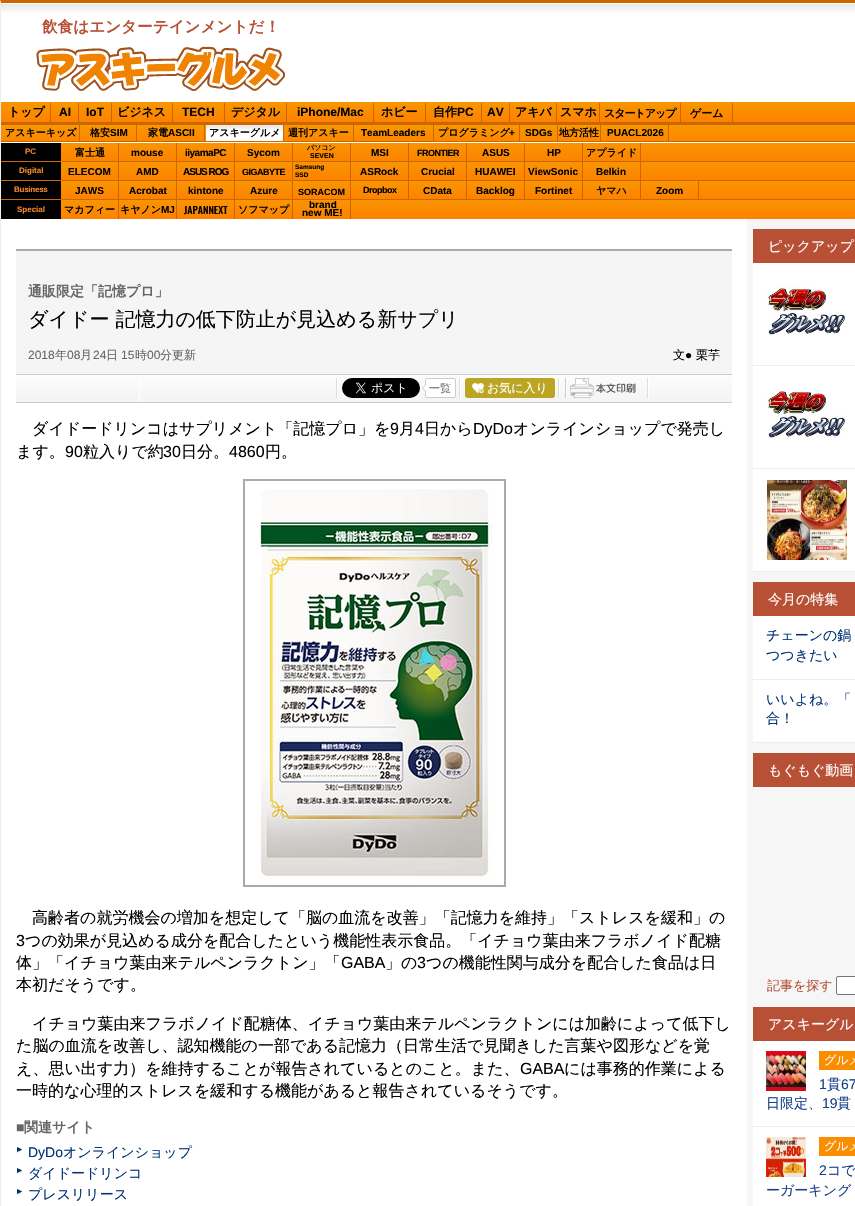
#include "include/core/SkBlurTypes.h"
#include "include/core/SkCanvas.h"
#include "include/core/SkData.h"
#include "include/core/SkFont.h"
#include "include/core/SkFontMgr.h"
#include "include/core/SkImage.h"
#include "include/core/SkMaskFilter.h"
#include "include/core/SkPaint.h"
#include "include/core/SkPathBuilder.h"
#include "include/core/SkTextBlob.h"
#include "include/effects/SkDashPathEffect.h"
#include "include/effects/SkGradientShader.h"
#include "include/utils/SkParsePath.h"

extern sk_sp<SkFontMgr> fontMgr;

void draw(SkCanvas* canvas) {
    SkPaint p;
    p.setAntiAlias(true);
    auto font = [&](const char* family, int weight, float size, bool italic = false) {
        SkFontStyle style(weight, SkFontStyle::kNormal_Width,
            italic ? SkFontStyle::kItalic_Slant : SkFontStyle::kUpright_Slant);
        SkFont result(fontMgr->matchFamilyStyle(family, style), size);
        result.setSubpixel(true);
        return result;
    };
    auto drawTracked = [&](const char* s, float x, float y, const SkFont& font, const SkPaint& ink, float letter, float word) {
        std::vector<SkGlyphID> glyphs(font.countText(s, strlen(s), SkTextEncoding::kUTF8));
        std::vector<float> xs(glyphs.size());
        font.textToGlyphs(s, strlen(s), SkTextEncoding::kUTF8, glyphs);
        font.getXPos(glyphs, xs, x);
        float extra = 0;
        for (size_t i = 0; i < glyphs.size(); i++) {
            xs[i] += extra;
            extra += letter + word * (glyphs[i] == font.unicharToGlyph(' '));
        }
        canvas->drawTextBlob(SkTextBlob::MakeFromPosHGlyphs(glyphs, xs, y, font), 0, 0, ink);
    };
    auto drawPhoto = [&](const char* path, float l, float t, float r, float b) {
        auto image = SkImages::DeferredFromEncodedData(SkData::MakeFromFileName(path));
        canvas->drawImageRect(image, SkRect::MakeLTRB(l, t, r, b), SkSamplingOptions());
    };
    canvas->clear(0xFFF6F6F6);
    p.setColor(0xFFCC6600);
    canvas->drawPath(SkPathBuilder().moveTo(0, 0).lineTo(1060, 0).lineTo(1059, 3).lineTo(1, 3).close().detach(), p);
    p.setColor(0xFFEEEEEE);
    canvas->drawPath(SkPathBuilder().moveTo(0, 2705).lineTo(0, 0).lineTo(1, 3).lineTo(1, 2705).close().detach(), p);
    p.setColor(0xFFFFFFFF);
    canvas->drawRect(SkRect::MakeLTRB(1, 3, 855, 143), p);
    drawPhoto("media/1.png", 1, 4, 855, 12);
    auto font1 = font("WenQuanYi Zen Hei", 700, 15.6f);
    p.setColor(0xFFB75035);
    canvas->drawString("飲食はエンターテインメントだ！", 42, 32, font1, p);
    drawPhoto("media/2.png", 36, 46, 285, 91);
    p.setColor(0xFFCC6600);
    canvas->drawRect(SkRect::MakeLTRB(1, 122, 855, 125), p);
    drawPhoto("media/3.png", 1, 102, 855, 122);
    canvas->drawRect(SkRect::MakeLTRB(50, 103, 51, 123), p);
    auto font2 = font("WenQuanYi Zen Hei", 700, 12);
    p.setColor(0xFF000000);
    canvas->drawString("トップ", 8, 116, font2, p);
    p.setColor(0xFFCC6600);
    canvas->drawRect(SkRect::MakeLTRB(78, 103, 79, 123), p);
    auto font3 = font("Liberation Sans", 700, 12);
    p.setColor(0xFF000000);
    canvas->drawString("AI", 59, 116, font3, p);
    p.setColor(0xFFCC6600);
    canvas->drawRect(SkRect::MakeLTRB(111, 103, 112, 123), p);
    p.setColor(0xFF000000);
    canvas->drawString("IoT", 86, 116, font3, p);
    p.setColor(0xFFCC6600);
    canvas->drawRect(SkRect::MakeLTRB(172, 103, 173, 123), p);
    p.setColor(0xFF000000);
    canvas->drawString("ビジネス", 117, 116, font2, p);
    p.setColor(0xFFCC6600);
    canvas->drawRect(SkRect::MakeLTRB(224, 103, 225, 123), p);
    p.setColor(0xFF000000);
    canvas->drawString("TECH", 182, 116, font3, p);
    p.setColor(0xFFCC6600);
    canvas->drawRect(SkRect::MakeLTRB(286, 103, 287, 123), p);
    p.setColor(0xFF000000);
    canvas->drawString("デジタル", 231, 116, font2, p);
    p.setColor(0xFFCC6600);
    canvas->drawRect(SkRect::MakeLTRB(373, 103, 374, 123), p);
    p.setColor(0xFF000000);
    canvas->drawString("iPhone/Mac", 297, 116, font3, p);
    p.setColor(0xFFCC6600);
    canvas->drawRect(SkRect::MakeLTRB(425, 103, 426, 123), p);
    p.setColor(0xFF000000);
    canvas->drawString("ホビー", 381, 116, font2, p);
    p.setColor(0xFFCC6600);
    canvas->drawRect(SkRect::MakeLTRB(481, 103, 482, 123), p);
    p.setColor(0xFF000000);
    canvas->drawString("自作", 433, 116, font2, p);
    canvas->drawString("PC", 457, 116, font3, p);
    p.setColor(0xFFCC6600);
    canvas->drawRect(SkRect::MakeLTRB(509, 103, 510, 123), p);
    p.setColor(0xFF000000);
    canvas->drawString("AV", 487, 116, font3, p);
    p.setColor(0xFFCC6600);
    canvas->drawRect(SkRect::MakeLTRB(556, 103, 557, 123), p);
    p.setColor(0xFF000000);
    canvas->drawString("アキバ", 515, 116, font2, p);
    p.setColor(0xFFCC6600);
    canvas->drawRect(SkRect::MakeLTRB(599, 103, 600, 123), p);
    p.setColor(0xFF000000);
    canvas->drawString("スマホ", 560, 116, font2, p);
    p.setColor(0xFFCC6600);
    canvas->drawRect(SkRect::MakeLTRB(680, 103, 681, 123), p);
    auto font4 = font("WenQuanYi Zen Hei", 700, 11);
    p.setColor(0xFF000000);
    drawTracked("スタートアップ", 604, 117, font4, p, -1, 0);
    p.setColor(0xFFCC6600);
    canvas->drawRect(SkRect::MakeLTRB(732, 103, 733, 123), p);
    p.setColor(0xFF000000);
    canvas->drawString("ゲーム", 690, 117, font4, p);
    drawPhoto("media/4.png", 1, 125, 855, 141);
    p.setColor(0xFFCC6600);
    canvas->drawRect(SkRect::MakeLTRB(1, 141, 855, 142), p);
    canvas->drawRect(SkRect::MakeLTRB(79, 125, 80, 141), p);
    auto font5 = font("WenQuanYi Zen Hei", 700, 10);
    p.setColor(0xFF000000);
    canvas->drawString("アスキーキッズ", 5, 136, font5, p);
    p.setColor(0xFFCC6600);
    canvas->drawRect(SkRect::MakeLTRB(136, 125, 137, 141), p);
    p.setColor(0xFF000000);
    canvas->drawString("格安", 90, 136, font5, p);
    auto font6 = font("Liberation Sans", 700, 10);
    canvas->drawString("SIM", 110, 136, font6, p);
    p.setColor(0xFFCC6600);
    canvas->drawRect(SkRect::MakeLTRB(204, 125, 205, 141), p);
    p.setColor(0xFF000000);
    canvas->drawString("家電", 148, 136, font5, p);
    canvas->drawString("ASCII", 168, 136, font6, p);
    p.setColor(0xFFCC6600);
    canvas->drawRect(SkRect::MakeLTRB(283, 125, 284, 141), p);
    drawPhoto("media/5.png", 206, 125, 283, 141);
    p.setColor(0xFF000000);
    canvas->drawString("アスキーグルメ", 209, 136, font5, p);
    p.setColor(0xFFCC6600);
    canvas->drawRect(SkRect::MakeLTRB(353, 125, 354, 141), p);
    p.setColor(0xFF000000);
    canvas->drawString("週刊アスキー", 288, 136, font5, p);
    p.setColor(0xFFCC6600);
    canvas->drawRect(SkRect::MakeLTRB(433, 125, 434, 141), p);
    p.setColor(0xFF000000);
    canvas->drawString("TeamLeaders", 361, 136, font6, p);
    p.setColor(0xFFCC6600);
    canvas->drawRect(SkRect::MakeLTRB(519, 125, 520, 141), p);
    p.setColor(0xFF000000);
    canvas->drawString("プログラミング", 438, 136, font5, p);
    canvas->drawString("+", 509, 136, font6, p);
    p.setColor(0xFFCC6600);
    canvas->drawRect(SkRect::MakeLTRB(557, 125, 558, 141), p);
    p.setColor(0xFF000000);
    canvas->drawString("SDGs", 525, 136, font6, p);
    p.setColor(0xFFCC6600);
    canvas->drawRect(SkRect::MakeLTRB(600, 125, 601, 141), p);
    p.setColor(0xFF000000);
    canvas->drawString("地方活性", 559, 136, font5, p);
    p.setColor(0xFFCC6600);
    canvas->drawRect(SkRect::MakeLTRB(668, 125, 669, 141), p);
    p.setColor(0xFF000000);
    canvas->drawString("PUACL2026", 607, 136, font6, p);
    canvas->drawRect(SkRect::MakeLTRB(1, 143, 61, 161), p);
    p.setColor(0xFFCC6601);
    canvas->drawRect(SkRect::MakeLTRB(1, 161, 61, 162), p);
    auto font7 = font("Liberation Sans", 700, 8);
    p.setColor(0xFFF4862C);
    canvas->drawString("PC", 25, 154, font7, p);
    {
        const SkColor colors[] = {0xFFF99402, 0xFFFE8200};
        const float stops[] = {0, 1};
        const SkPoint ends[] = {{560, 143}, {560, 162}};
        p.setShader(SkGradientShader::MakeLinear(ends, colors, stops, 2, SkTileMode::kClamp));
        p.setAlpha(255);
    }
    canvas->drawRect(SkRect::MakeLTRB(61, 143, 855, 161), p);
    {
        const SkColor colors[] = {0xFFF99402, 0xFFFE8200};
        const float stops[] = {0, 1};
        const SkPoint ends[] = {{560, 162}, {560, 181}};
        p.setShader(SkGradientShader::MakeLinear(ends, colors, stops, 2, SkTileMode::kClamp));
        p.setAlpha(255);
    }
    canvas->drawRect(SkRect::MakeLTRB(61, 162, 855, 180), p);
    {
        const SkColor colors[] = {0xFFF99402, 0xFFFE8200};
        const float stops[] = {0, 1};
        const SkPoint ends[] = {{560, 181}, {560, 200}};
        p.setShader(SkGradientShader::MakeLinear(ends, colors, stops, 2, SkTileMode::kClamp));
        p.setAlpha(255);
    }
    canvas->drawRect(SkRect::MakeLTRB(61, 181, 855, 199), p);
    {
        const SkColor colors[] = {0xFFF99402, 0xFFFE8200};
        const float stops[] = {0, 1};
        const SkPoint ends[] = {{560, 200}, {560, 219}};
        p.setShader(SkGradientShader::MakeLinear(ends, colors, stops, 2, SkTileMode::kClamp));
        p.setAlpha(255);
    }
    canvas->drawRect(SkRect::MakeLTRB(61, 200, 855, 219), p);
    p.setShader(nullptr);
    p.setColor(0xFFCC6601);
    canvas->drawRect(SkRect::MakeLTRB(118, 143, 119, 219), p);
    canvas->drawRect(SkRect::MakeLTRB(61, 161, 119, 162), p);
    p.setColor(0xFF000000);
    canvas->drawString("富士通", 75, 156, font5, p);
    p.setColor(0xFFCC6601);
    canvas->drawRect(SkRect::MakeLTRB(176, 143, 177, 219), p);
    canvas->drawRect(SkRect::MakeLTRB(119, 161, 177, 162), p);
    p.setColor(0xFF000000);
    canvas->drawString("mouse", 131, 156, font6, p);
    p.setColor(0xFFCC6601);
    canvas->drawRect(SkRect::MakeLTRB(234, 143, 235, 219), p);
    canvas->drawRect(SkRect::MakeLTRB(177, 161, 235, 162), p);
    p.setColor(0xFF000000);
    drawTracked("iiyamaPC", 185, 156, font6, p, -0.5f, 0);
    p.setColor(0xFFCC6601);
    canvas->drawRect(SkRect::MakeLTRB(292, 143, 293, 219), p);
    canvas->drawRect(SkRect::MakeLTRB(235, 161, 293, 162), p);
    p.setColor(0xFF000000);
    canvas->drawString("Sycom", 247, 156, font6, p);
    p.setColor(0xFFCC6601);
    canvas->drawRect(SkRect::MakeLTRB(350, 143, 351, 219), p);
    canvas->drawRect(SkRect::MakeLTRB(293, 161, 351, 162), p);
    auto font8 = font("WenQuanYi Zen Hei", 700, 7);
    p.setColor(0xFF000000);
    canvas->drawString("パソコン", 307, 150, font8, p);
    auto font9 = font("Liberation Sans", 700, 7);
    canvas->drawString("SEVEN", 310, 158, font9, p);
    p.setColor(0xFFCC6601);
    canvas->drawRect(SkRect::MakeLTRB(408, 143, 409, 200), p);
    canvas->drawRect(SkRect::MakeLTRB(351, 161, 409, 162), p);
    p.setColor(0xFF000000);
    canvas->drawString("MSI", 371, 156, font6, p);
    p.setColor(0xFFCC6601);
    canvas->drawRect(SkRect::MakeLTRB(466, 143, 467, 200), p);
    canvas->drawRect(SkRect::MakeLTRB(409, 161, 467, 162), p);
    auto font10 = font("Liberation Sans", 700, 9);
    p.setColor(0xFF000000);
    drawTracked("FRONTIER", 417, 156, font10, p, -0.5f, 0);
    p.setColor(0xFFCC6601);
    canvas->drawRect(SkRect::MakeLTRB(524, 143, 525, 200), p);
    canvas->drawRect(SkRect::MakeLTRB(467, 161, 525, 162), p);
    p.setColor(0xFF000000);
    canvas->drawString("ASUS", 482, 156, font6, p);
    p.setColor(0xFFCC6601);
    canvas->drawRect(SkRect::MakeLTRB(582, 143, 583, 200), p);
    canvas->drawRect(SkRect::MakeLTRB(525, 161, 583, 162), p);
    p.setColor(0xFF000000);
    canvas->drawString("HP", 547, 156, font6, p);
    p.setColor(0xFFCC6601);
    canvas->drawRect(SkRect::MakeLTRB(640, 143, 641, 200), p);
    canvas->drawRect(SkRect::MakeLTRB(583, 161, 855, 162), p);
    p.setColor(0xFF000000);
    canvas->drawString("アプライド", 586, 156, font5, p);
    canvas->drawRect(SkRect::MakeLTRB(1, 162, 61, 180), p);
    p.setColor(0xFFCC6601);
    canvas->drawRect(SkRect::MakeLTRB(1, 180, 61, 181), p);
    p.setColor(0xFFF4862C);
    canvas->drawString("Digital", 19, 173, font7, p);
    p.setColor(0xFFCC6601);
    canvas->drawRect(SkRect::MakeLTRB(61, 180, 855, 181), p);
    p.setColor(0xFF000000);
    canvas->drawString("ELECOM", 68, 175, font6, p);
    canvas->drawString("AMD", 136, 175, font6, p);
    drawTracked("ASUS ROG", 183, 175, font6, p, -1, 0);
    drawTracked("GIGABYTE", 242, 175, font10, p, -0.5f, 0);
    auto font11 = font("Liberation Sans", 700, 6.5f);
    canvas->drawString("Samsung", 295, 169, font11, p);
    canvas->drawString("SSD", 295, 177, font11, p);
    {
        const struct { const char* s; float x, y; } items[] = {
            {"ASRock", 360, 175},
            {"Crucial", 421, 175},
            {"HUAWEI", 475, 175},
            {"ViewSonic", 528, 175},
            {"Belkin", 596, 175},
        };
        for (auto [s, x, y] : items) {
            canvas->drawString(s, x, y, font6, p);
        }
    }
    canvas->drawRect(SkRect::MakeLTRB(1, 181, 61, 199), p);
    p.setColor(0xFFCC6601);
    canvas->drawRect(SkRect::MakeLTRB(1, 199, 61, 200), p);
    p.setColor(0xFFF4862C);
    drawTracked("Business", 14, 192, font7, p, -0.25f, 0);
    p.setColor(0xFFCC6601);
    canvas->drawRect(SkRect::MakeLTRB(61, 199, 641, 200), p);
    p.setColor(0xFF000000);
    {
        const struct { const char* s; float x, y; } items[] = {
            {"JAWS", 75, 194},
            {"Acrobat", 129, 194},
            {"kintone", 188, 194},
            {"Azure", 250, 194},
        };
        for (auto [s, x, y] : items) {
            canvas->drawString(s, x, y, font6, p);
        }
    }
    canvas->drawString("SORACOM", 298, 195, font10, p);
    drawTracked("Dropbox", 363, 193, font10, p, -0.5f, 0);
    {
        const struct { const char* s; float x, y; } items[] = {
            {"CData", 423, 194},
            {"Backlog", 476, 194},
            {"Fortinet", 535, 194},
        };
        for (auto [s, x, y] : items) {
            canvas->drawString(s, x, y, font6, p);
        }
    }
    canvas->drawString("ヤマハ", 596, 194, font5, p);
    p.setColor(0xFFCC6601);
    canvas->drawRect(SkRect::MakeLTRB(698, 181, 699, 200), p);
    canvas->drawRect(SkRect::MakeLTRB(641, 199, 855, 200), p);
    p.setColor(0xFF000000);
    canvas->drawString("Zoom", 656, 194, font6, p);
    canvas->drawRect(SkRect::MakeLTRB(1, 200, 61, 219), p);
    p.setColor(0xFFF4862C);
    canvas->drawString("Special", 17, 212, font7, p);
    p.setColor(0xFF000000);
    canvas->drawString("マカフィー", 64, 213, font5, p);
    canvas->drawString("キヤノン", 120, 213, font5, p);
    canvas->drawString("MJ", 161, 213, font6, p);
    auto font12 = font("Oswald", 500, 10);
    canvas->drawString("JAPANNEXT", 184, 214, font12, p);
    canvas->drawString("ソフマップ", 238, 213, font5, p);
    canvas->save();
    canvas->clipRect(SkRect::MakeLTRB(293, 201, 350, 220));
    canvas->drawString("brand", 309, 208, font6, p);
    canvas->restore();
    canvas->drawString("new ME!", 302, 216, font6, p);
    {
        const struct { float l, t, r, b; SkColor color; } items[] = {
            {1, 219, 747, 1206, 0xFFFFFFFF},
            {16, 251, 732, 374, 0xFFF5F5F5},
            {16, 249, 732, 251, 0xFFAAAAAA},
            {16, 402, 732, 403, 0xFFCCCCCC},
        };
        for (auto [l, t, r, b, color] : items) {
            p.setColor(color);
            canvas->drawRect(SkRect::MakeLTRB(l, t, r, b), p);
        }
    }
    auto font13 = font("WenQuanYi Zen Hei", 700, 14);
    p.setColor(0xFF666666);
    canvas->drawString("通販限定「記憶プロ」", 28, 296, font13, p);
    auto font14 = font("WenQuanYi Zen Hei", 500, 20);
    p.setColor(0xFF000000);
    canvas->drawString("ダイドー 記憶力の低下防止が見込める新サプリ", 28, 326, font14, p);
    auto font15 = font("Liberation Sans", 400, 12);
    p.setColor(0xFF666666);
    canvas->drawString("2018", 28, 359, font15, p);
    auto font16 = font("WenQuanYi Zen Hei", 500, 12);
    canvas->drawString("年", 55, 359, font16, p);
    canvas->drawString("08", 67, 359, font15, p);
    canvas->drawString("月", 80, 359, font16, p);
    canvas->drawString("24", 93, 359, font15, p);
    canvas->drawString("日", 106, 359, font16, p);
    canvas->drawString("15", 121, 359, font15, p);
    canvas->drawString("時", 135, 359, font16, p);
    canvas->drawString("00", 147, 359, font15, p);
    canvas->drawString("分更新", 160, 359, font16, p);
    p.setColor(0xFF000000);
    canvas->drawString("文", 673, 359, font16, p);
    canvas->drawString("●", 685, 359, font15, p);
    canvas->drawString("栗芋", 696, 359, font16, p);
    drawPhoto("media/6.png", 16, 374, 732, 402);
    drawPhoto("media/7.png", 336, 378, 338, 398);
    drawPhoto("media/7.png", 459, 378, 461, 398);
    drawPhoto("media/8.png", 342, 378, 420, 398);
    p.setColor(0xFFFFFFFF);
    canvas->drawRoundRect(SkRect::MakeLTRB(425.5f, 378.5f, 455.5f, 397.5f), 1.5f, 1.5f, p);
    p.setStyle(SkPaint::kStroke_Style);
    p.setStrokeWidth(1);
    p.setColor(0xFFCCCCCC);
    canvas->drawRoundRect(SkRect::MakeLTRB(425.5f, 378.5f, 455.5f, 397.5f), 1.5f, 1.5f, p);
    p.setStyle(SkPaint::kFill_Style);
    canvas->drawPath(SkPathBuilder().moveTo(426, 384).lineTo(426, 392).lineTo(422, 388).close().detach(), p);
    auto font17 = font("WenQuanYi Zen Hei", 500, 11);
    p.setColor(0xFF666666);
    canvas->drawString("一覧", 429, 392, font17, p);
    p.setColor(0xFFFFFFFF);
    canvas->drawPath(SkPathBuilder().moveTo(426, 385).lineTo(426, 391).lineTo(423, 388).close().detach(), p);
    drawPhoto("media/7.png", 558, 378, 560, 398);
    p.setColor(0xFFBCA523);
    canvas->drawRoundRect(SkRect::MakeLTRB(465, 378, 555, 398), 3, 3, p);
    drawPhoto("media/9.png", 472, 383, 484, 394);
    p.setColor(0xFFFFFFFF);
    canvas->drawString("お気に入り", 487, 392, font16, p);
    drawPhoto("media/7.png", 647, 378, 649, 398);
    drawPhoto("media/10.png", 565, 378, 636, 398);
    auto font18 = font("WenQuanYi Zen Hei", 500, 16);
    p.setColor(0xFF000000);
    canvas->drawString("ダイドードリンコはサプリメント「記憶プロ」を", 32, 434, font18, p);
    auto font19 = font("Liberation Sans", 400, 16);
    canvas->drawString("9", 390, 434, font19, p);
    canvas->drawString("月", 399, 434, font18, p);
    canvas->drawString("4", 415, 434, font19, p);
    canvas->drawString("日から", 424, 434, font18, p);
    canvas->drawString("DyDo", 473, 434, font19, p);
    canvas->drawString("オンラインショップで発売し", 513, 434, font18, p);
    canvas->drawString("ます。", 16, 457, font18, p);
    canvas->drawString("90", 65, 457, font19, p);
    canvas->drawString("粒入りで約", 83, 457, font18, p);
    canvas->drawString("30", 163, 457, font19, p);
    canvas->drawString("日分。", 181, 457, font18, p);
    canvas->drawString("4860", 229, 457, font19, p);
    canvas->drawString("円。", 265, 457, font18, p);
    p.setStyle(SkPaint::kStroke_Style);
    p.setStrokeWidth(2);
    p.setColor(0xFFAAAAAA);
    canvas->drawRect(SkRect::MakeLTRB(244, 480, 505, 886), p);
    drawPhoto("media/11.png", 257, 489, 493, 881);
    p.setStyle(SkPaint::kFill_Style);
    p.setColor(0xFF000000);
    canvas->drawString("高齢者の就労機会の増加を想定して「脳の血流を改善」「記憶力を維持」「ストレスを緩和」の", 32, 923, font18, p);
    canvas->drawString("3", 16, 946, font19, p);
    canvas->drawString("つの効果が見込める成分を配合したという機能性表示食品。「イチョウ葉由来フラボノイド配糖", 25, 946, font18, p);
    canvas->drawString("体」「イチョウ葉由来テルペンラクトン」「", 16, 968, font18, p);
    canvas->drawString("GABA", 341, 968, font19, p);
    canvas->drawString("」の", 385, 968, font18, p);
    canvas->drawString("3", 417, 968, font19, p);
    {
        const struct { const char* s; float x, y; } items[] = {
            {"つの機能性関与成分を配合した食品は日", 426, 968},
            {"本初だそうです。", 16, 990},
            {"イチョウ葉由来フラボノイド配糖体、イチョウ葉由来テルペンラクトンには加齢によって低下し", 32, 1029},
            {"た脳の血流を改善し、認知機能の一部である記憶力（日常生活で見聞きした言葉や図形などを覚", 16, 1051},
            {"え、思い出す力）を維持することが報告されているとのこと。また、", 16, 1074},
        };
        for (auto [s, x, y] : items) {
            canvas->drawString(s, x, y, font18, p);
        }
    }
    canvas->drawString("GABA", 520, 1074, font19, p);
    canvas->drawString("には事務的作業による", 564, 1074, font18, p);
    canvas->drawString("一時的な心理的ストレスを緩和する機能があると報告されているそうです。", 16, 1096, font18, p);
    auto font20 = font("Liberation Sans", 700, 14);
    p.setColor(0xFF666666);
    canvas->drawString("■", 16, 1132, font20, p);
    canvas->drawString("関連サイト", 24, 1132, font13, p);
    drawPhoto("media/12.png", 16, 1147, 22, 1153);
    auto font21 = font("Liberation Sans", 400, 14);
    p.setColor(0xFF003377);
    canvas->drawString("DyDo", 28, 1157, font21, p);
    auto font22 = font("WenQuanYi Zen Hei", 500, 14);
    canvas->drawString("オンラインショップ", 63, 1157, font22, p);
    drawPhoto("media/12.png", 16, 1168, 22, 1174);
    canvas->drawString("ダイドードリンコ", 28, 1178, font22, p);
    drawPhoto("media/12.png", 16, 1189, 22, 1195);
    canvas->drawString("プレスリリース", 28, 1199, font22, p);
    p.setColor(0xFFFFFFFF);
    canvas->drawRect(SkRect::MakeLTRB(753, 263, 855, 571), p);
    p.setColor(0xFFB75035);
    canvas->drawRect(SkRect::MakeLTRB(753, 229, 855, 263), p);
    p.setColor(0xFFFFFFFF);
    canvas->drawString("ピックアップ", 768, 251, font22, p);
    p.setColor(0xFFEBEFF5);
    canvas->drawRect(SkRect::MakeLTRB(753, 365, 855, 366), p);
    drawPhoto("media/13.png", 767, 284, 846, 335);
    canvas->drawRect(SkRect::MakeLTRB(753, 468, 855, 469), p);
    drawPhoto("media/14.png", 767, 387, 846, 438);
    canvas->drawRect(SkRect::MakeLTRB(753, 571, 855, 572), p);
    drawPhoto("media/15.png", 767, 480, 847, 560);
    p.setColor(0xFFFFFFFF);
    canvas->drawRect(SkRect::MakeLTRB(753, 616, 855, 742), p);
    p.setColor(0xFFB75035);
    canvas->drawRect(SkRect::MakeLTRB(753, 582, 855, 616), p);
    p.setColor(0xFFFFFFFF);
    canvas->drawString("今月の特集", 768, 604, font22, p);
    p.setColor(0xFFEBEFF5);
    canvas->drawRect(SkRect::MakeLTRB(753, 679, 855, 680), p);
    p.setColor(0xFF003377);
    canvas->drawString("チェーンの鍋", 766, 640, font22, p);
    canvas->drawString("つつきたい", 766, 660, font22, p);
    p.setColor(0xFFEBEFF5);
    canvas->drawRect(SkRect::MakeLTRB(753, 742, 855, 743), p);
    p.setColor(0xFF003377);
    canvas->drawString("いいよね。「", 766, 704, font22, p);
    canvas->drawString("合！", 766, 723, font22, p);
    p.setColor(0xFFB75035);
    canvas->drawRect(SkRect::MakeLTRB(753, 753, 855, 787), p);
    p.setColor(0xFFFFFFFF);
    canvas->drawString("もぐもぐ動画", 768, 775, font22, p);
    auto font23 = font("WenQuanYi Zen Hei", 500, 13);
    p.setColor(0xFFB75035);
    canvas->drawString("記事を探す", 767, 990, font23, p);
    p.setColor(0xFFFFFFFF);
    canvas->drawRoundRect(SkRect::MakeLTRB(836.5f, 976.5f, 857.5f, 994.5f), 1.5f, 1.5f, p);
    p.setStyle(SkPaint::kStroke_Style);
    p.setStrokeWidth(1);
    p.setColor(0xFF767676);
    canvas->drawRoundRect(SkRect::MakeLTRB(836.5f, 976.5f, 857.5f, 994.5f), 1.5f, 1.5f, p);
    p.setStyle(SkPaint::kFill_Style);
    p.setColor(0xFFFFFFFF);
    canvas->drawRect(SkRect::MakeLTRB(753, 1041, 855, 1206), p);
    p.setColor(0xFFB75035);
    canvas->drawRect(SkRect::MakeLTRB(753, 1007, 855, 1041), p);
    p.setColor(0xFFFFFFFF);
    canvas->drawString("アスキーグル", 768, 1029, font22, p);
    p.setColor(0xFFEBEFF5);
    canvas->drawRect(SkRect::MakeLTRB(753, 1126, 855, 1127), p);
    drawPhoto("media/16.png", 766, 1051, 806, 1091);
    p.setColor(0xFFFB8D01);
    canvas->drawRect(SkRect::MakeLTRB(819, 1051, 855, 1070), p);
    p.setColor(0xFFFFFFFF);
    canvas->drawString("グルメ", 824, 1064, font16, p);
    p.setColor(0xFF17408A);
    canvas->drawString("1", 819, 1089, font21, p);
    canvas->drawString("貫", 827, 1089, font22, p);
    canvas->drawString("67", 841, 1089, font21, p);
    canvas->drawString("日限定、", 766, 1108, font22, p);
    canvas->drawString("19", 822, 1108, font21, p);
    canvas->drawString("貫", 837, 1108, font22, p);
    drawPhoto("media/17.png", 766, 1137, 806, 1177);
    p.setColor(0xFFFB8D01);
    canvas->drawRect(SkRect::MakeLTRB(819, 1137, 855, 1156), p);
    p.setColor(0xFFFFFFFF);
    canvas->drawString("グルメ", 824, 1150, font16, p);
    p.setColor(0xFF17408A);
    canvas->drawString("2", 819, 1175, font21, p);
    canvas->drawString("コで", 827, 1175, font22, p);
    canvas->drawString("ーガーキング", 766, 1195, font22, p);
}
